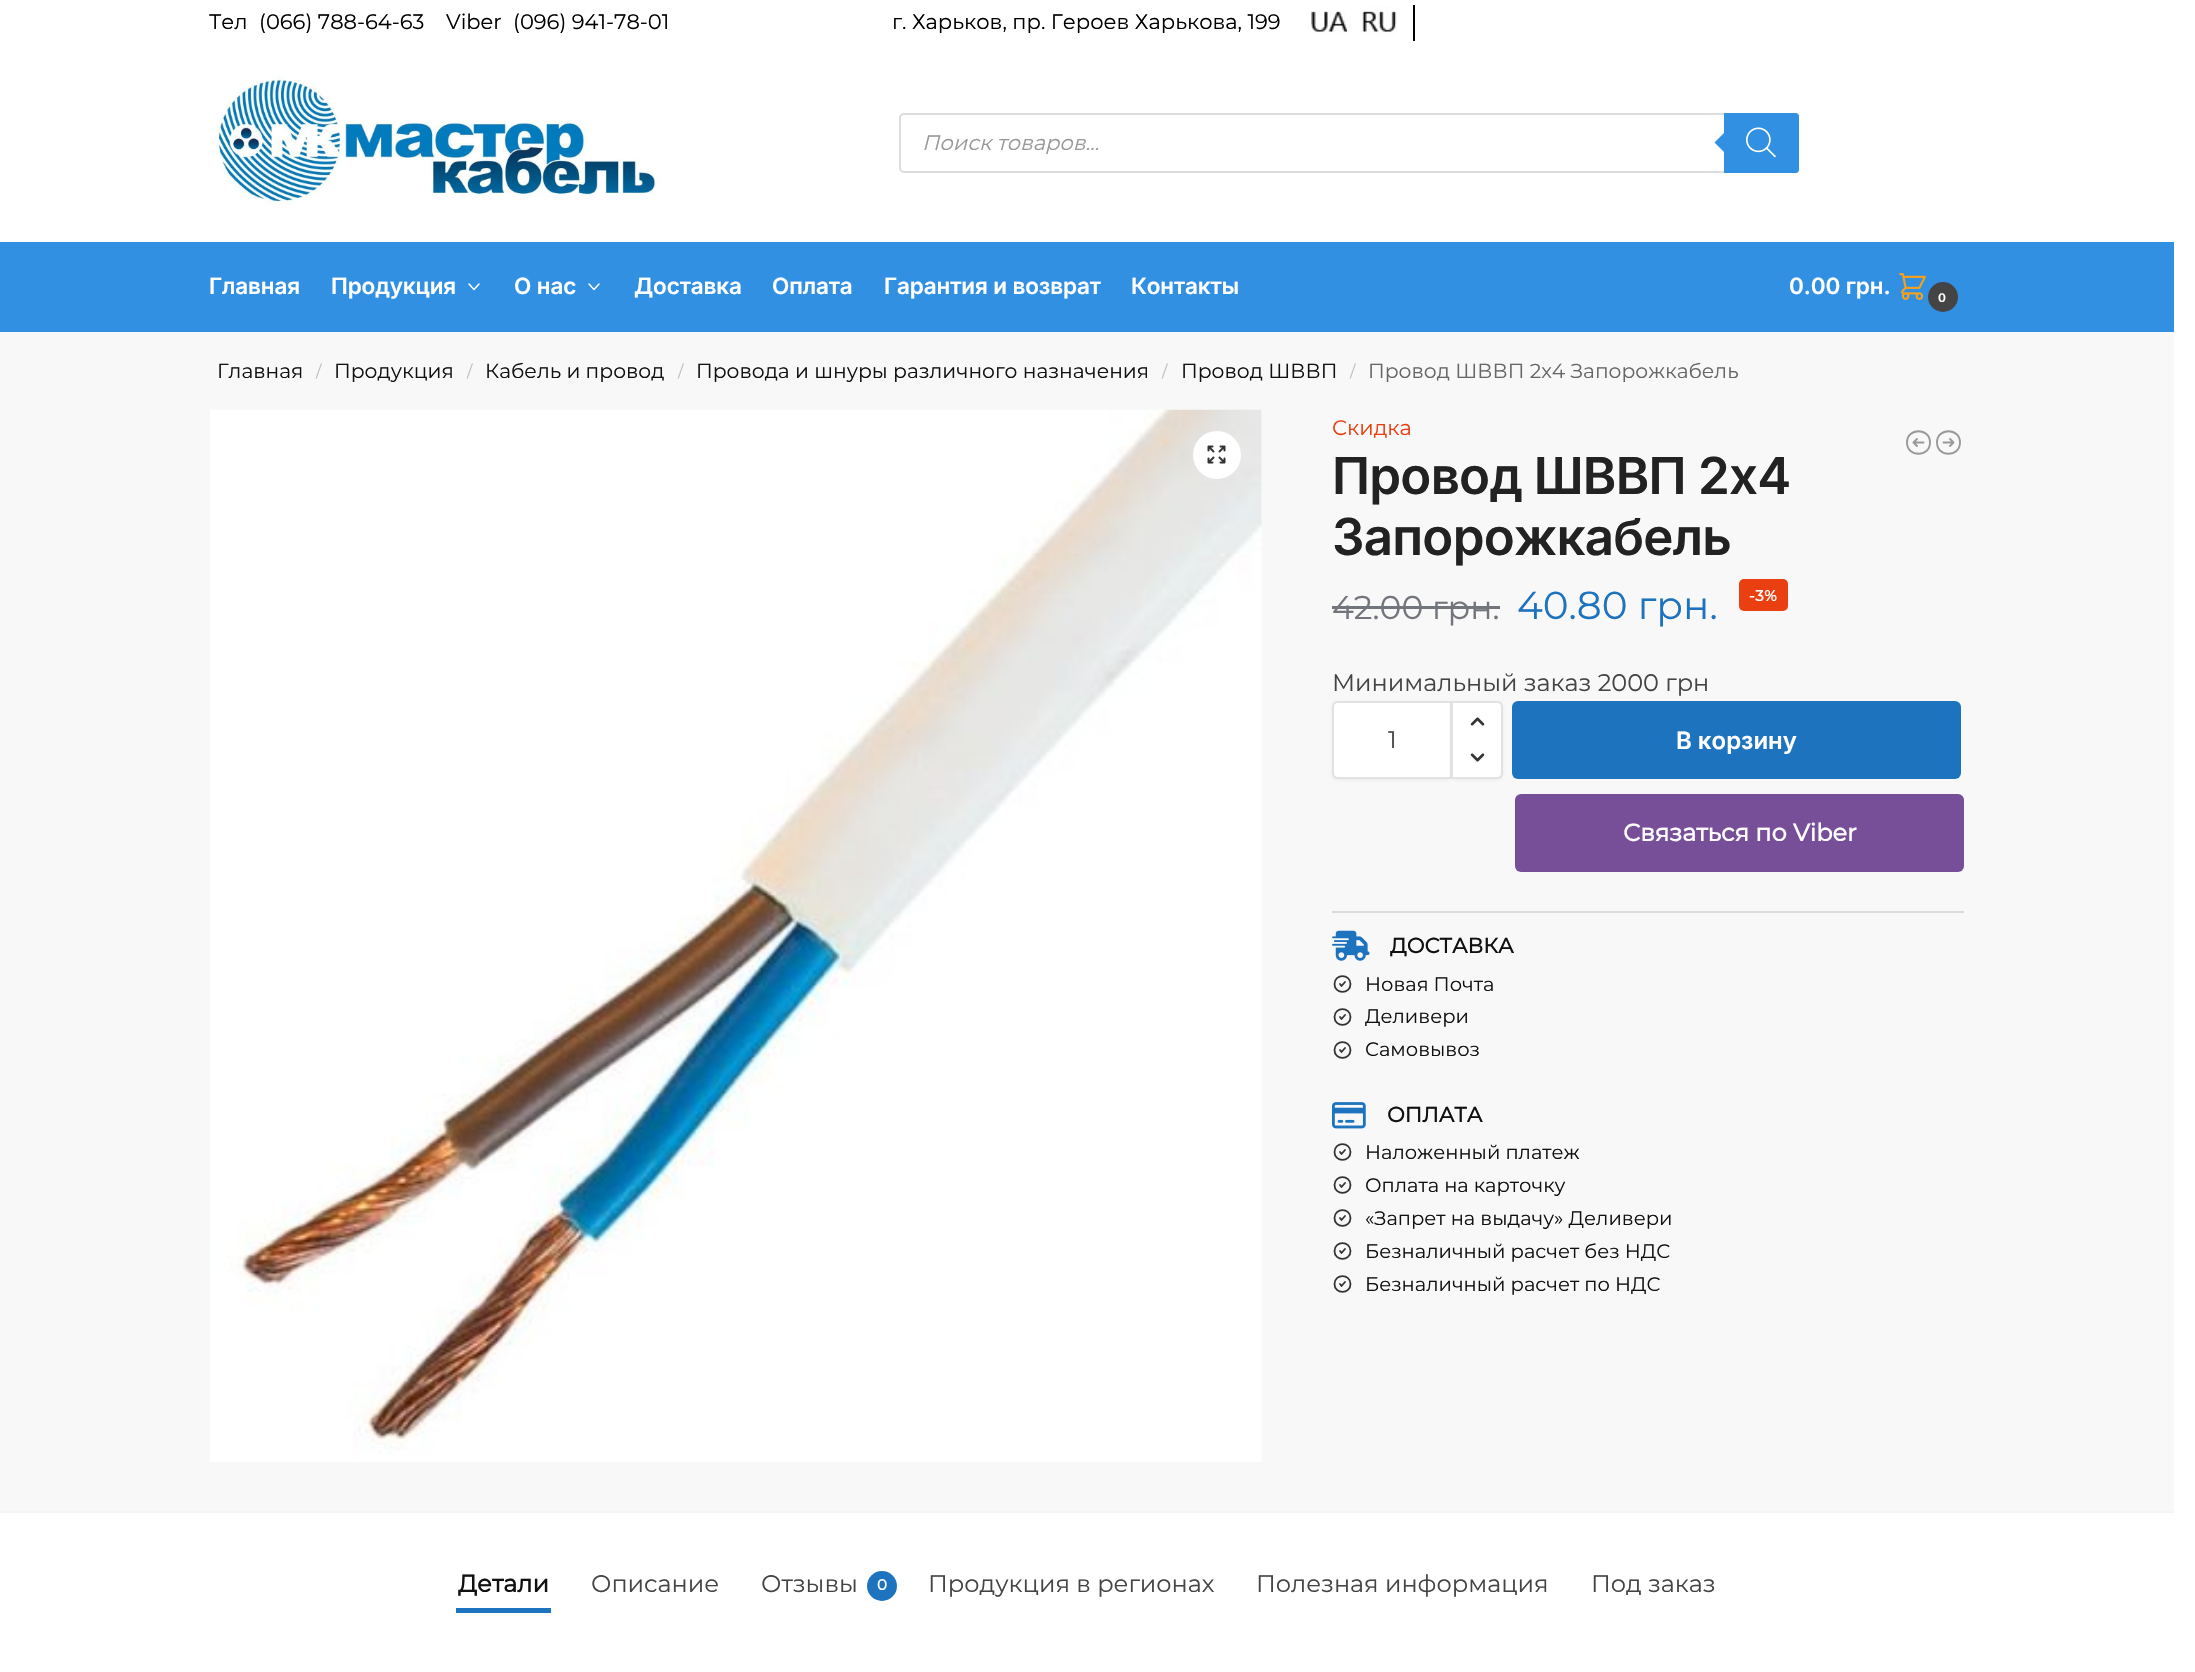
#include "include/core/SkBlurTypes.h"
#include "include/core/SkCanvas.h"
#include "include/core/SkData.h"
#include "include/core/SkFont.h"
#include "include/core/SkFontMgr.h"
#include "include/core/SkImage.h"
#include "include/core/SkMaskFilter.h"
#include "include/core/SkPaint.h"
#include "include/core/SkPathBuilder.h"
#include "include/core/SkTextBlob.h"
#include "include/effects/SkDashPathEffect.h"
#include "include/effects/SkGradientShader.h"
#include "include/utils/SkParsePath.h"

extern sk_sp<SkFontMgr> fontMgr;

void draw(SkCanvas* canvas) {
    SkPaint p;
    p.setAntiAlias(true);
    auto font = [&](const char* family, int weight, float size, bool italic = false) {
        SkFontStyle style(weight, SkFontStyle::kNormal_Width,
            italic ? SkFontStyle::kItalic_Slant : SkFontStyle::kUpright_Slant);
        SkFont result(fontMgr->matchFamilyStyle(family, style), size);
        result.setSubpixel(true);
        return result;
    };
    auto drawTracked = [&](const char* s, float x, float y, const SkFont& font, const SkPaint& ink, float letter, float word) {
        std::vector<SkGlyphID> glyphs(font.countText(s, strlen(s), SkTextEncoding::kUTF8));
        std::vector<float> xs(glyphs.size());
        font.textToGlyphs(s, strlen(s), SkTextEncoding::kUTF8, glyphs);
        font.getXPos(glyphs, xs, x);
        float extra = 0;
        for (size_t i = 0; i < glyphs.size(); i++) {
            xs[i] += extra;
            extra += letter + word * (glyphs[i] == font.unicharToGlyph(' '));
        }
        canvas->drawTextBlob(SkTextBlob::MakeFromPosHGlyphs(glyphs, xs, y, font), 0, 0, ink);
    };
    auto drawPhoto = [&](const char* path, float l, float t, float r, float b) {
        auto image = SkImages::DeferredFromEncodedData(SkData::MakeFromFileName(path));
        canvas->drawImageRect(image, SkRect::MakeLTRB(l, t, r, b), SkSamplingOptions());
    };
    canvas->clear(0xFFFFFFFF);
    auto font1 = font("Montserrat", 100, 21);
    p.setColor(0xFF000000);
    {
        const struct { const char* s; float x, y; } items[] = {
            {"Тел", 209, 29},
            {"(066) 788-64-63", 259, 29},
            {"Viber", 446, 29},
            {"(096) 941-78-01", 513, 29},
            {"г. Харьков, пр. Героев Харькова, 199", 892, 29},
        };
        for (auto [s, x, y] : items) {
            canvas->drawString(s, x, y, font1, p);
        }
    }
    drawPhoto("media/1.png", 1311, 11, 1347, 34);
    canvas->drawRect(SkRect::MakeLTRB(1413, 5, 1415, 41), p);
    drawPhoto("media/2.png", 1362, 6, 1397, 36);
    drawPhoto("media/3.png", 215, 75, 660, 205);
    p.setStyle(SkPaint::kStroke_Style);
    p.setStrokeWidth(2);
    p.setColor(0xFFDDDDDD);
    canvas->drawRoundRect(SkRect::MakeLTRB(900, 114, 1798, 172), 4, 4, p);
    auto font2 = font("Montserrat", 100, 21, true);
    p.setStyle(SkPaint::kFill_Style);
    p.setColor(0xFF999999);
    canvas->drawString("Поиск товаров...", 922, 150, font2, p);
    p.setColor(0xFF3290E3);
    canvas->drawPath(SkPathBuilder().moveTo(1724, 113).lineTo(1796, 113).cubicTo(1797.5f, 113, 1799, 114.5f, 1799, 116).lineTo(1799, 170).cubicTo(1799, 171.5f, 1797.5f, 173, 1796, 173).lineTo(1724, 173).close().detach(), p);
    canvas->drawPath(SkPathBuilder().moveTo(1726.5f, 130.5f).lineTo(1726.5f, 154.5f).lineTo(1714.5f, 142.5f).close().detach(), p);
    drawPhoto("media/4.png", 1746, 127, 1776, 158);
    canvas->drawRect(SkRect::MakeLTRB(0, 242, 2174, 332), p);
    auto font3 = font("Inter", 600, 22.5f);
    p.setColor(0xFFFFFFFF);
    drawTracked("Главная", 209, 294, font3, p, -0.1f, 0);
    drawTracked("Продукция", 331, 294, font3, p, -0.1f, 0);
    p.setStyle(SkPaint::kStroke_Style);
    p.setStrokeWidth(1.5f);
    p.setStrokeCap(SkPaint::kRound_Cap);
    p.setStrokeJoin(SkPaint::kRound_Join);
    canvas->drawPath(SkPathBuilder().moveTo(479, 284).lineTo(474, 289.5f).lineTo(469, 284).detach(), p);
    p.setStyle(SkPaint::kFill_Style);
    drawTracked("О нас", 514, 294, font3, p, -0.1f, 0);
    p.setStyle(SkPaint::kStroke_Style);
    canvas->drawPath(SkPathBuilder().moveTo(599, 284).lineTo(594, 289.5f).lineTo(589, 284).detach(), p);
    p.setStyle(SkPaint::kFill_Style);
    {
        const struct { const char* s; float x, y; } items[] = {
            {"Доставка", 634, 294},
            {"Оплата", 772, 294},
            {"Гарантия и возврат", 884, 294},
            {"Контакты", 1131, 294},
            {"0.00 грн.", 1789, 294},
        };
        for (auto [s, x, y] : items) {
            drawTracked(s, x, y, font3, p, -0.1f, 0);
        }
    }
    drawPhoto("media/5.png", 1899, 273, 1926, 300);
    p.setColor(0xFF444444);
    canvas->drawCircle(1943, 297, 14, p);
    p.setStyle(SkPaint::kStroke_Style);
    p.setStrokeWidth(2);
    p.setStrokeCap(SkPaint::kButt_Cap);
    p.setStrokeJoin(SkPaint::kMiter_Join);
    canvas->drawCircle(1943, 297, 14, p);
    auto font4 = font("Inter", 600, 12);
    p.setStyle(SkPaint::kFill_Style);
    p.setColor(0xFFFFFFFF);
    drawTracked("0", 1938, 302, font4, p, -0.1f, 0);
    p.setColor(0xFFF8F8F8);
    canvas->drawRect(SkRect::MakeLTRB(0, 332, 2174, 1511), p);
    auto font5 = font("Montserrat", 100, 20.25f);
    p.setColor(0xFF111111);
    canvas->drawString("Главная", 217, 378, font5, p);
    auto font6 = font("Montserrat", 100, 16);
    p.setColor(0xFFBEBEBE);
    canvas->drawString("/", 316, 377, font6, p);
    p.setColor(0xFF111111);
    canvas->drawString("Продукция", 334, 378, font5, p);
    p.setColor(0xFFBEBEBE);
    canvas->drawString("/", 467, 377, font6, p);
    p.setColor(0xFF111111);
    canvas->drawString("Кабель и провод", 485, 378, font5, p);
    p.setColor(0xFFBEBEBE);
    canvas->drawString("/", 678, 377, font6, p);
    p.setColor(0xFF111111);
    canvas->drawString("Провода и шнуры различного назначения", 696, 378, font5, p);
    p.setColor(0xFFBEBEBE);
    canvas->drawString("/", 1162, 377, font6, p);
    p.setColor(0xFF111111);
    canvas->drawString("Провод ШВВП", 1181, 378, font5, p);
    p.setColor(0xFFBEBEBE);
    canvas->drawString("/", 1350, 377, font6, p);
    p.setColor(0xFF666666);
    canvas->drawString("Провод ШВВП 2х4 Запорожкабель", 1368, 378, font5, p);
    drawPhoto("media/6.png", 210, 409, 1262, 1462);
    p.setColor(0xFFFFFFFF);
    canvas->drawCircle(1217, 455, 24, p);
    drawPhoto("media/7.png", 1207, 445, 1226, 464);
    p.setColor(0xFFE93F11);
    canvas->drawString("Скидка", 1332, 435, font1, p);
    p.setStyle(SkPaint::kStroke_Style);
    p.setStrokeWidth(1.9f);
    p.setStrokeCap(SkPaint::kRound_Cap);
    p.setStrokeJoin(SkPaint::kRound_Join);
    p.setColor(0xFF999999);
    canvas->drawPath(SkPathBuilder().moveTo(1917, 446).lineTo(1913.5f, 442.5f).moveTo(1913.5f, 442.5f).lineTo(1917, 439).moveTo(1913.5f, 442.5f).lineTo(1923.5f, 442.5f).moveTo(1907, 442.5f).cubicTo(1907, 427.5f, 1930, 427.5f, 1930, 442.5f).cubicTo(1930, 457.5f, 1907, 457.5f, 1907, 442.5f).close().moveTo(1950, 439).lineTo(1953.5f, 442.5f).moveTo(1953.5f, 442.5f).lineTo(1950, 446).moveTo(1953.5f, 442.5f).lineTo(1943.5f, 442.5f).moveTo(1960, 442.5f).cubicTo(1960, 457.5f, 1937, 457.5f, 1937, 442.5f).cubicTo(1937, 427.5f, 1960, 427.5f, 1960, 442.5f).close().detach(), p);
    auto font7 = font("Inter", 600, 51);
    p.setStyle(SkPaint::kFill_Style);
    p.setColor(0xFF222222);
    drawTracked("Провод ШВВП 2х4", 1332, 494, font7, p, -0.75f, 0);
    drawTracked("Запорожкабель", 1332, 555, font7, p, -0.75f, 0);
    auto font8 = font("Montserrat", 100, 33);
    p.setColor(0xFF72767C);
    canvas->drawString("42.00 грн.", 1332, 619, font8, p);
    canvas->drawRect(SkRect::MakeLTRB(1332, 606, 1500, 609), p);
    auto font9 = font("Montserrat", 100, 39);
    p.setColor(0xFF1E73BE);
    canvas->drawString("40.80 грн.", 1517, 619, font9, p);
    p.setColor(0xFFE93F11);
    canvas->drawRoundRect(SkRect::MakeLTRB(1739, 579, 1788, 611), 5, 5, p);
    auto font10 = font("Montserrat", 700, 15);
    p.setColor(0xFFFFFFFF);
    drawTracked("-3%", 1749, 601, font10, p, 0.5f, 0);
    auto font11 = font("Montserrat", 100, 24);
    p.setColor(0xFF444444);
    canvas->drawString("Минимальный заказ 2000 грн", 1332, 691, font11, p);
    p.setColor(0x0D000000);
    p.setMaskFilter(SkMaskFilter::MakeBlur(kNormal_SkBlurStyle, 1.5f));
    canvas->drawRoundRect(SkRect::MakeLTRB(1332, 702, 1452, 780), 6, 6, p);
    p.setMaskFilter(nullptr);
    p.setColor(0xFFFFFFFF);
    canvas->drawPath(SkPathBuilder().moveTo(1338, 702).lineTo(1451, 702).lineTo(1451, 778).lineTo(1338, 778).cubicTo(1335, 778, 1333, 776, 1333, 773).lineTo(1333, 707).cubicTo(1333, 704, 1335, 702, 1338, 702).close().detach(), p);
    p.setStyle(SkPaint::kStroke_Style);
    p.setStrokeWidth(2);
    p.setStrokeCap(SkPaint::kButt_Cap);
    p.setStrokeJoin(SkPaint::kMiter_Join);
    p.setColor(0xFFE2E2E2);
    canvas->drawPath(SkPathBuilder().moveTo(1338, 702).lineTo(1451, 702).lineTo(1451, 778).lineTo(1338, 778).cubicTo(1335, 778, 1333, 776, 1333, 773).lineTo(1333, 707).cubicTo(1333, 704, 1335, 702, 1338, 702).close().detach(), p);
    p.setStyle(SkPaint::kFill_Style);
    p.setColor(0xFF444444);
    canvas->drawString("1", 1388, 748, font11, p);
    p.setColor(0x0D000000);
    p.setMaskFilter(SkMaskFilter::MakeBlur(kNormal_SkBlurStyle, 1.5f));
    canvas->drawRoundRect(SkRect::MakeLTRB(1451, 702, 1503, 780), 6, 6, p);
    p.setMaskFilter(nullptr);
    p.setColor(0xFFFFFFFF);
    canvas->drawPath(SkPathBuilder().moveTo(1452, 702).lineTo(1497, 702).cubicTo(1500, 702, 1502, 704, 1502, 707).lineTo(1502, 773).cubicTo(1502, 776, 1500, 778, 1497, 778).lineTo(1452, 778).close().detach(), p);
    p.setStyle(SkPaint::kStroke_Style);
    p.setColor(0xFFE2E2E2);
    canvas->drawPath(SkPathBuilder().moveTo(1452, 702).lineTo(1497, 702).cubicTo(1500, 702, 1502, 704, 1502, 707).lineTo(1502, 773).cubicTo(1502, 776, 1500, 778, 1497, 778).lineTo(1452, 778).close().detach(), p);
    drawPhoto("media/8.png", 1470, 717, 1485, 726);
    drawPhoto("media/9.png", 1470, 753, 1485, 762);
    p.setStyle(SkPaint::kFill_Style);
    p.setColor(0xFF1E73BE);
    canvas->drawRoundRect(SkRect::MakeLTRB(1512, 701, 1961, 779), 6, 6, p);
    auto font12 = font("Inter", 600, 24);
    p.setColor(0xFFFFFFFF);
    canvas->drawString("В корзину", 1676, 749, font12, p);
    p.setColor(0xFF774E98);
    canvas->drawRoundRect(SkRect::MakeLTRB(1515, 794, 1964, 872), 6, 6, p);
    auto font13 = font("Montserrat", 700, 24);
    p.setColor(0xFFFFFFFF);
    canvas->drawString("Связаться по Viber", 1623, 841, font13, p);
    p.setColor(0xFFDCDCDC);
    canvas->drawRect(SkRect::MakeLTRB(1332, 911, 1964, 913), p);
    drawPhoto("media/10.png", 1332, 930, 1370, 961);
    auto font14 = font("Montserrat", 700, 21);
    p.setColor(0xFF111111);
    canvas->drawString("ДОСТАВКА", 1390, 953, font14, p);
    p.setStyle(SkPaint::kStroke_Style);
    p.setStrokeWidth(1.8f);
    p.setStrokeCap(SkPaint::kRound_Cap);
    p.setStrokeJoin(SkPaint::kRound_Join);
    p.setColor(0xFF333333);
    canvas->drawPath(SkPathBuilder().moveTo(1340, 984).lineTo(1341.5f, 986).lineTo(1345, 982).moveTo(1350.5f, 984).cubicTo(1350.5f, 994.5f, 1334.5f, 994.5f, 1334.5f, 984).cubicTo(1334.5f, 973.5f, 1350.5f, 973.5f, 1350.5f, 984).close().detach(), p);
    auto font15 = font("Montserrat", 100, 19.5f);
    p.setStyle(SkPaint::kFill_Style);
    p.setColor(0xFF111111);
    canvas->drawString("Новая Почта", 1365, 991, font15, p);
    p.setStyle(SkPaint::kStroke_Style);
    p.setColor(0xFF333333);
    canvas->drawPath(SkPathBuilder().moveTo(1340, 1017).lineTo(1341.5f, 1019).lineTo(1345, 1015).moveTo(1350.5f, 1017).cubicTo(1350.5f, 1027.5f, 1334.5f, 1027.5f, 1334.5f, 1017).cubicTo(1334.5f, 1006.5f, 1350.5f, 1006.5f, 1350.5f, 1017).close().detach(), p);
    p.setStyle(SkPaint::kFill_Style);
    p.setColor(0xFF111111);
    canvas->drawString("Деливери", 1365, 1023, font15, p);
    p.setStyle(SkPaint::kStroke_Style);
    p.setColor(0xFF333333);
    canvas->drawPath(SkPathBuilder().moveTo(1340, 1050).lineTo(1341.5f, 1052).lineTo(1345, 1048).moveTo(1350.5f, 1050).cubicTo(1350.5f, 1060.5f, 1334.5f, 1060.5f, 1334.5f, 1050).cubicTo(1334.5f, 1039.5f, 1350.5f, 1039.5f, 1350.5f, 1050).close().detach(), p);
    p.setStyle(SkPaint::kFill_Style);
    p.setColor(0xFF111111);
    canvas->drawString("Самовывоз", 1365, 1056, font15, p);
    drawPhoto("media/11.png", 1332, 1102, 1366, 1129);
    canvas->drawString("ОПЛАТА", 1387, 1122, font14, p);
    p.setStyle(SkPaint::kStroke_Style);
    p.setColor(0xFF333333);
    canvas->drawPath(SkPathBuilder().moveTo(1340, 1152).lineTo(1341.5f, 1154).lineTo(1345, 1150).moveTo(1350.5f, 1152).cubicTo(1350.5f, 1162.5f, 1334.5f, 1162.5f, 1334.5f, 1152).cubicTo(1334.5f, 1141.5f, 1350.5f, 1141.5f, 1350.5f, 1152).close().detach(), p);
    p.setStyle(SkPaint::kFill_Style);
    p.setColor(0xFF111111);
    canvas->drawString("Наложенный платеж", 1365, 1159, font15, p);
    p.setStyle(SkPaint::kStroke_Style);
    p.setColor(0xFF333333);
    canvas->drawPath(SkPathBuilder().moveTo(1340, 1185).lineTo(1341.5f, 1187).lineTo(1345, 1183).moveTo(1350.5f, 1185).cubicTo(1350.5f, 1195.5f, 1334.5f, 1195.5f, 1334.5f, 1185).cubicTo(1334.5f, 1174.5f, 1350.5f, 1174.5f, 1350.5f, 1185).close().detach(), p);
    p.setStyle(SkPaint::kFill_Style);
    p.setColor(0xFF111111);
    canvas->drawString("Оплата на карточку", 1365, 1192, font15, p);
    p.setStyle(SkPaint::kStroke_Style);
    p.setColor(0xFF333333);
    canvas->drawPath(SkPathBuilder().moveTo(1340, 1218).lineTo(1341.5f, 1220).lineTo(1345, 1216).moveTo(1350.5f, 1218).cubicTo(1350.5f, 1228.5f, 1334.5f, 1228.5f, 1334.5f, 1218).cubicTo(1334.5f, 1207.5f, 1350.5f, 1207.5f, 1350.5f, 1218).close().detach(), p);
    p.setStyle(SkPaint::kFill_Style);
    p.setColor(0xFF111111);
    canvas->drawString("«Запрет на выдачу» Деливери", 1365, 1225, font15, p);
    p.setStyle(SkPaint::kStroke_Style);
    p.setColor(0xFF333333);
    canvas->drawPath(SkPathBuilder().moveTo(1340, 1251).lineTo(1341.5f, 1253).lineTo(1345, 1249).moveTo(1350.5f, 1251).cubicTo(1350.5f, 1261.5f, 1334.5f, 1261.5f, 1334.5f, 1251).cubicTo(1334.5f, 1240.5f, 1350.5f, 1240.5f, 1350.5f, 1251).close().detach(), p);
    p.setStyle(SkPaint::kFill_Style);
    p.setColor(0xFF111111);
    canvas->drawString("Безналичный расчет без НДС", 1365, 1258, font15, p);
    p.setStyle(SkPaint::kStroke_Style);
    p.setColor(0xFF333333);
    canvas->drawPath(SkPathBuilder().moveTo(1340, 1284).lineTo(1341.5f, 1286).lineTo(1345, 1282).moveTo(1350.5f, 1284).cubicTo(1350.5f, 1294.5f, 1334.5f, 1294.5f, 1334.5f, 1284).cubicTo(1334.5f, 1273.5f, 1350.5f, 1273.5f, 1350.5f, 1284).close().detach(), p);
    p.setStyle(SkPaint::kFill_Style);
    p.setColor(0xFF111111);
    canvas->drawString("Безналичный расчет по НДС", 1365, 1291, font15, p);
    p.setColor(0xFFF5F5F5);
    canvas->drawRect(SkRect::MakeLTRB(0, 1511, 2174, 1513), p);
    p.setColor(0xFF111111);
    canvas->drawString("Детали", 458, 1592, font13, p);
    p.setColor(0xFF1E73BE);
    canvas->drawRect(SkRect::MakeLTRB(456, 1608, 551, 1613), p);
    p.setColor(0xFF444444);
    canvas->drawString("Описание", 591, 1592, font11, p);
    canvas->drawString("Отзывы", 761, 1592, font11, p);
    p.setColor(0xFF1E73BE);
    canvas->drawCircle(882, 1586, 15, p);
    p.setColor(0xFFFFFFFF);
    canvas->drawString("0", 877, 1590, font10, p);
    p.setColor(0xFF444444);
    {
        const struct { const char* s; float x, y; } items[] = {
            {"Продукция в регионах", 928, 1592},
            {"Полезная информация", 1256, 1592},
            {"Под заказ", 1591, 1592},
        };
        for (auto [s, x, y] : items) {
            canvas->drawString(s, x, y, font11, p);
        }
    }
}
